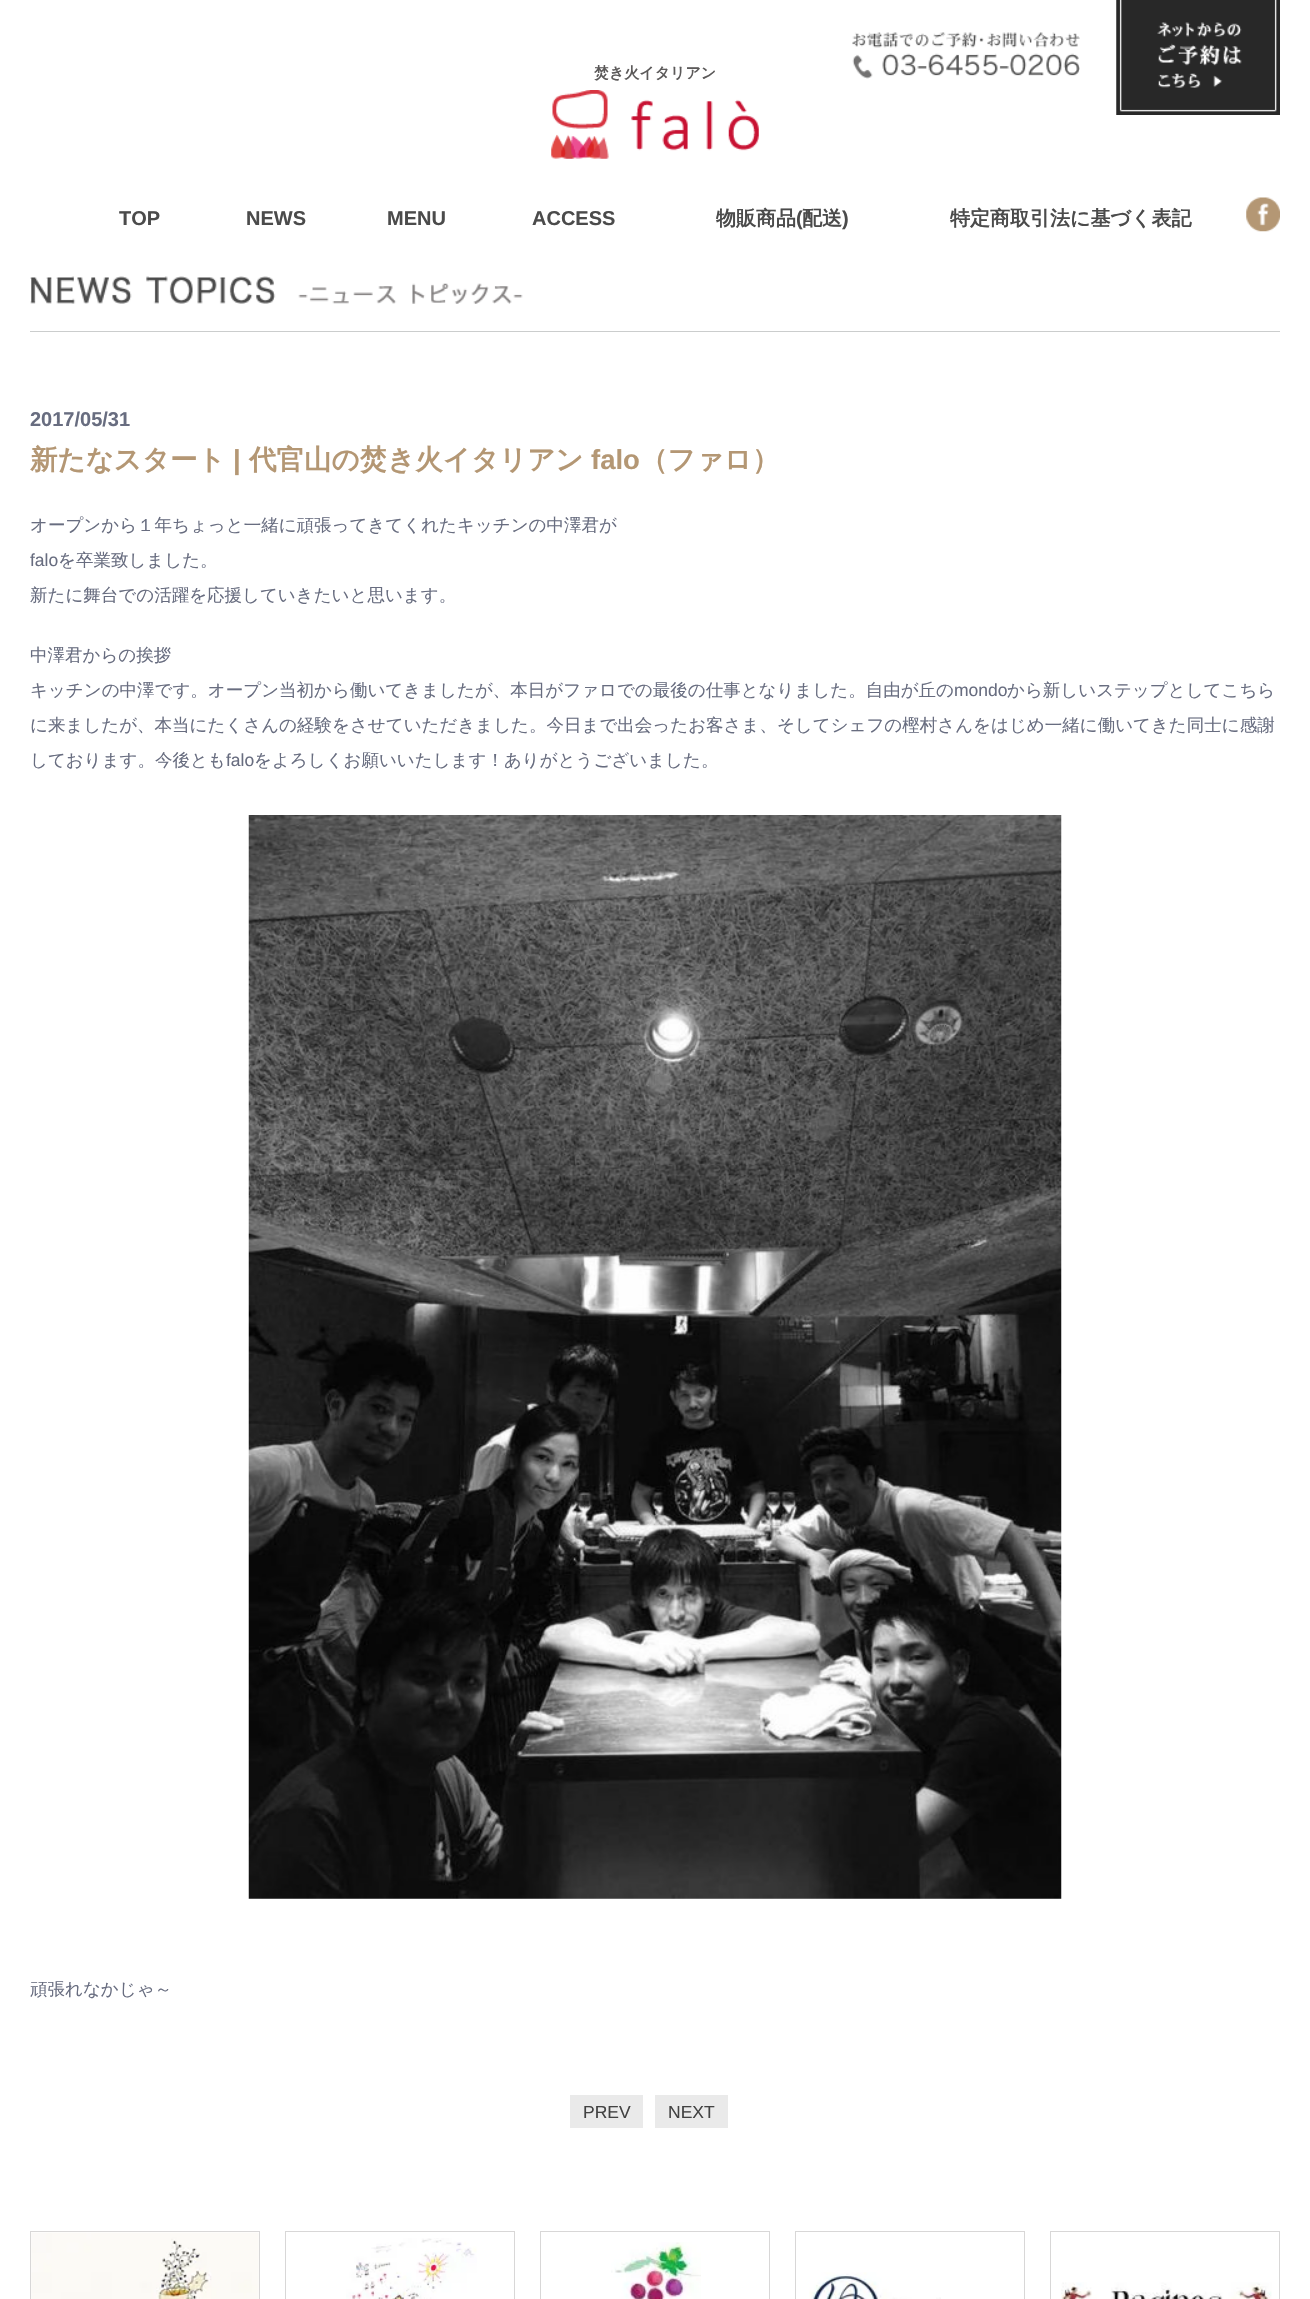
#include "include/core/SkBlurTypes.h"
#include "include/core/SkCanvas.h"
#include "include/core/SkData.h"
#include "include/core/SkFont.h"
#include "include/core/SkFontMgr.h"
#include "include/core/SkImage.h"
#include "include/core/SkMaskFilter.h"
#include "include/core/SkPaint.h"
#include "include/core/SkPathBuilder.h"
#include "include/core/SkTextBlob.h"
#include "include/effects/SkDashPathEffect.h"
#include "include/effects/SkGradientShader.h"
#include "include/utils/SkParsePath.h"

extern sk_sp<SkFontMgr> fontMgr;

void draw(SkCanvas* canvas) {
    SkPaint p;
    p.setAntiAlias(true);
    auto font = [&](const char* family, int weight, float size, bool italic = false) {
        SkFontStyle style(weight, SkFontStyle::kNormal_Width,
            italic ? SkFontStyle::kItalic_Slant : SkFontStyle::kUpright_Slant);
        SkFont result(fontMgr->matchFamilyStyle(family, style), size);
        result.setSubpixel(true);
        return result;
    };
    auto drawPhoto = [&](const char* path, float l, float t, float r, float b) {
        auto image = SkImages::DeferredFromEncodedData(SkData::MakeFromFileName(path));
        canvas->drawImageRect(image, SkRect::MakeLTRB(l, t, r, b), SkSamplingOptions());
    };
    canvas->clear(0xFFFFFFFF);
    auto font1 = font("WenQuanYi Zen Hei", 700, 15);
    p.setColor(0xFF5C5A5A);
    canvas->drawString("焚き火イタリアン", 594, 78, font1, p);
    drawPhoto("media/1.png", 551, 90, 759, 159);
    drawPhoto("media/2.png", 852, 32, 1080, 79);
    drawPhoto("media/3.png", 1116, 0, 1280, 115);
    auto font2 = font("Liberation Sans", 700, 20);
    p.setColor(0xFF4B4B4B);
    {
        const struct { const char* s; float x, y; } items[] = {
            {"TOP", 119, 225},
            {"NEWS", 246, 225},
            {"MENU", 387, 225},
            {"ACCESS", 532, 225},
        };
        for (auto [s, x, y] : items) {
            canvas->drawString(s, x, y, font2, p);
        }
    }
    auto font3 = font("WenQuanYi Zen Hei", 700, 20);
    canvas->drawString("物販商品", 716, 225, font3, p);
    canvas->drawString("(", 796, 225, font2, p);
    canvas->drawString("配送", 802, 225, font3, p);
    canvas->drawString(")", 842, 225, font2, p);
    canvas->drawString("特定商取引法に基づく表記", 950, 225, font3, p);
    drawPhoto("media/4.png", 1246, 197, 1280, 232);
    p.setColor(0xFFCBCDCD);
    canvas->drawRect(SkRect::MakeLTRB(30, 331, 1280, 332), p);
    drawPhoto("media/5.png", 30, 276, 523, 304);
    p.setColor(0xFF686D80);
    canvas->drawString("2017/05/31", 30, 426, font2, p);
    auto font4 = font("WenQuanYi Zen Hei", 700, 27.5f);
    p.setColor(0xFFB49774);
    canvas->drawString("新たなスタート", 30, 469, font4, p);
    auto font5 = font("Liberation Sans", 700, 27.5f);
    canvas->drawString("|", 233, 469, font5, p);
    canvas->drawString("代官山の焚き火イタリアン", 249, 469, font4, p);
    canvas->drawString("falo", 591, 469, font5, p);
    canvas->drawString("（ファロ）", 640, 469, font4, p);
    auto font6 = font("WenQuanYi Zen Hei", 500, 17.5f);
    p.setColor(0xFF686D80);
    canvas->drawString("オープンから１年ちょっと一緒に頑張ってきてくれたキッチンの中澤君が", 30, 531, font6, p);
    auto font7 = font("Liberation Sans", 400, 17.5f);
    canvas->drawString("falo", 30, 566, font7, p);
    {
        const struct { const char* s; float x, y; } items[] = {
            {"を卒業致しました。", 58, 566},
            {"新たに舞台での活躍を応援していきたいと思います。", 30, 601},
            {"中澤君からの挨拶", 30, 661},
            {"キッチンの中澤です。オープン当初から働いてきましたが、本日がファロでの最後の仕事となりました。自由が丘の", 30, 696},
        };
        for (auto [s, x, y] : items) {
            canvas->drawString(s, x, y, font6, p);
        }
    }
    canvas->drawString("mondo", 954, 696, font7, p);
    {
        const struct { const char* s; float x, y; } items[] = {
            {"から新しいステップとしてこちら", 1007, 696},
            {"に来ましたが、本当にたくさんの経験をさせていただきました。今日まで出会ったお客さま、そしてシェフの樫村さんをはじめ一緒に働いてきた同士に感謝", 30, 731},
            {"しております。今後とも", 30, 766},
        };
        for (auto [s, x, y] : items) {
            canvas->drawString(s, x, y, font6, p);
        }
    }
    canvas->drawString("falo", 226, 766, font7, p);
    canvas->drawString("をよろしくお願いいたします！ありがとうございました。", 254, 766, font6, p);
    drawPhoto("media/6.png", 248, 815, 1062, 1899);
    canvas->drawString("頑張れなかじゃ～", 30, 1995, font6, p);
    p.setColor(0xFFEAEAEA);
    canvas->drawRect(SkRect::MakeLTRB(570, 2095, 643, 2128), p);
    p.setColor(0xFF424242);
    canvas->drawString("PREV", 583, 2118, font7, p);
    p.setColor(0xFFEAEAEA);
    canvas->drawRect(SkRect::MakeLTRB(655, 2095, 728, 2128), p);
    p.setColor(0xFF424242);
    canvas->drawString("NEXT", 668, 2118, font7, p);
    p.setStyle(SkPaint::kStroke_Style);
    p.setStrokeWidth(1);
    p.setColor(0xFFD8D7D7);
    canvas->drawRect(SkRect::MakeLTRB(30.5f, 2231.5f, 259.5f, 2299.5f), p);
    drawPhoto("media/7.png", 31, 2232, 259, 2299);
    canvas->drawRect(SkRect::MakeLTRB(285.5f, 2231.5f, 514.5f, 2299.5f), p);
    drawPhoto("media/8.png", 346, 2238, 477, 2299);
    canvas->drawRect(SkRect::MakeLTRB(540.5f, 2231.5f, 769.5f, 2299.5f), p);
    drawPhoto("media/9.png", 611, 2242, 701, 2299);
    canvas->drawRect(SkRect::MakeLTRB(795.5f, 2231.5f, 1024.5f, 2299.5f), p);
    drawPhoto("media/10.png", 809, 2272, 941, 2299);
    canvas->drawRect(SkRect::MakeLTRB(1050.5f, 2231.5f, 1279.5f, 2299.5f), p);
    drawPhoto("media/11.png", 1061, 2282, 1272, 2299);
}
